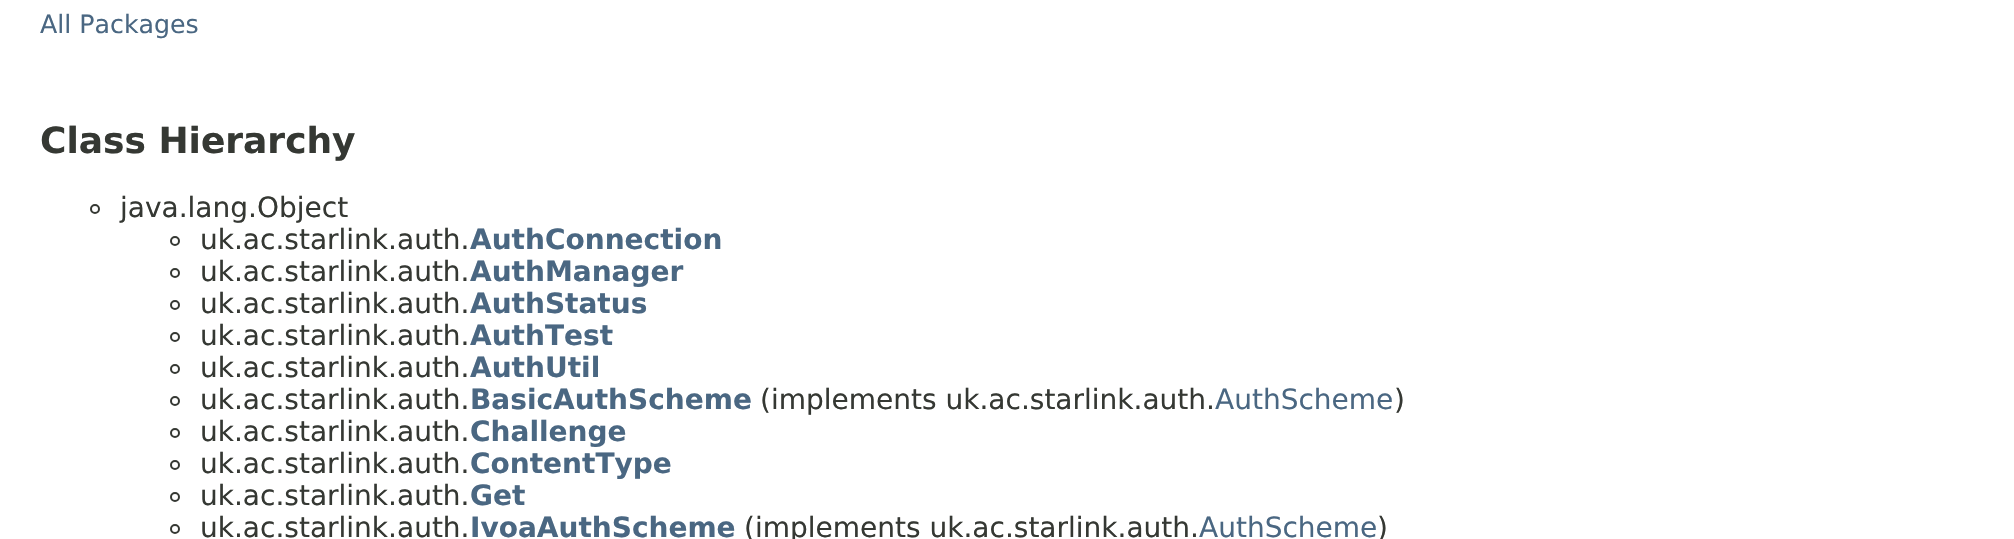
#include "include/core/SkBlurTypes.h"
#include "include/core/SkCanvas.h"
#include "include/core/SkData.h"
#include "include/core/SkFont.h"
#include "include/core/SkFontMgr.h"
#include "include/core/SkImage.h"
#include "include/core/SkMaskFilter.h"
#include "include/core/SkPaint.h"
#include "include/core/SkPathBuilder.h"
#include "include/core/SkTextBlob.h"
#include "include/effects/SkDashPathEffect.h"
#include "include/effects/SkGradientShader.h"
#include "include/utils/SkParsePath.h"

extern sk_sp<SkFontMgr> fontMgr;

void draw(SkCanvas* canvas) {
    SkPaint p;
    p.setAntiAlias(true);
    auto font = [&](const char* family, int weight, float size, bool italic = false) {
        SkFontStyle style(weight, SkFontStyle::kNormal_Width,
            italic ? SkFontStyle::kItalic_Slant : SkFontStyle::kUpright_Slant);
        SkFont result(fontMgr->matchFamilyStyle(family, style), size);
        result.setSubpixel(true);
        return result;
    };
    canvas->clear(0xFFFFFFFF);
    auto font1 = font("DejaVu Sans", 400, 25.25f);
    p.setColor(0xFF4A6782);
    canvas->drawString("All Packages", 40, 33, font1, p);
    auto font2 = font("DejaVu Sans", 700, 36);
    p.setColor(0xFF353833);
    canvas->drawString("Class Hierarchy", 40, 153, font2, p);
    p.setStyle(SkPaint::kStroke_Style);
    p.setStrokeWidth(2);
    canvas->drawCircle(95, 209, 4, p);
    auto font3 = font("DejaVu Sans", 400, 28);
    p.setStyle(SkPaint::kFill_Style);
    canvas->drawString("java.lang.Object", 120, 217, font3, p);
    p.setStyle(SkPaint::kStroke_Style);
    canvas->drawCircle(175, 241, 4, p);
    p.setStyle(SkPaint::kFill_Style);
    canvas->drawString("uk.ac.starlink.auth.", 200, 249, font3, p);
    auto font4 = font("DejaVu Sans", 700, 28);
    p.setColor(0xFF4A6782);
    canvas->drawString("AuthConnection", 470, 249, font4, p);
    p.setStyle(SkPaint::kStroke_Style);
    p.setColor(0xFF353833);
    canvas->drawCircle(175, 273, 4, p);
    p.setStyle(SkPaint::kFill_Style);
    canvas->drawString("uk.ac.starlink.auth.", 200, 281, font3, p);
    p.setColor(0xFF4A6782);
    canvas->drawString("AuthManager", 470, 281, font4, p);
    p.setStyle(SkPaint::kStroke_Style);
    p.setColor(0xFF353833);
    canvas->drawCircle(175, 305, 4, p);
    p.setStyle(SkPaint::kFill_Style);
    canvas->drawString("uk.ac.starlink.auth.", 200, 313, font3, p);
    p.setColor(0xFF4A6782);
    canvas->drawString("AuthStatus", 470, 313, font4, p);
    p.setStyle(SkPaint::kStroke_Style);
    p.setColor(0xFF353833);
    canvas->drawCircle(175, 337, 4, p);
    p.setStyle(SkPaint::kFill_Style);
    canvas->drawString("uk.ac.starlink.auth.", 200, 345, font3, p);
    p.setColor(0xFF4A6782);
    canvas->drawString("AuthTest", 470, 345, font4, p);
    p.setStyle(SkPaint::kStroke_Style);
    p.setColor(0xFF353833);
    canvas->drawCircle(175, 369, 4, p);
    p.setStyle(SkPaint::kFill_Style);
    canvas->drawString("uk.ac.starlink.auth.", 200, 377, font3, p);
    p.setColor(0xFF4A6782);
    canvas->drawString("AuthUtil", 470, 377, font4, p);
    p.setStyle(SkPaint::kStroke_Style);
    p.setColor(0xFF353833);
    canvas->drawCircle(175, 401, 4, p);
    p.setStyle(SkPaint::kFill_Style);
    canvas->drawString("uk.ac.starlink.auth.", 200, 409, font3, p);
    p.setColor(0xFF4A6782);
    canvas->drawString("BasicAuthScheme", 470, 409, font4, p);
    p.setColor(0xFF353833);
    canvas->drawString("(implements uk.ac.starlink.auth.", 760, 409, font3, p);
    p.setColor(0xFF4A6782);
    canvas->drawString("AuthScheme", 1215, 409, font3, p);
    p.setColor(0xFF353833);
    canvas->drawString(")", 1394, 409, font3, p);
    p.setStyle(SkPaint::kStroke_Style);
    canvas->drawCircle(175, 433, 4, p);
    p.setStyle(SkPaint::kFill_Style);
    canvas->drawString("uk.ac.starlink.auth.", 200, 441, font3, p);
    p.setColor(0xFF4A6782);
    canvas->drawString("Challenge", 470, 441, font4, p);
    p.setStyle(SkPaint::kStroke_Style);
    p.setColor(0xFF353833);
    canvas->drawCircle(175, 465, 4, p);
    p.setStyle(SkPaint::kFill_Style);
    canvas->drawString("uk.ac.starlink.auth.", 200, 473, font3, p);
    p.setColor(0xFF4A6782);
    canvas->drawString("ContentType", 470, 473, font4, p);
    p.setStyle(SkPaint::kStroke_Style);
    p.setColor(0xFF353833);
    canvas->drawCircle(175, 497, 4, p);
    p.setStyle(SkPaint::kFill_Style);
    canvas->drawString("uk.ac.starlink.auth.", 200, 505, font3, p);
    p.setColor(0xFF4A6782);
    canvas->drawString("Get", 470, 505, font4, p);
    p.setStyle(SkPaint::kStroke_Style);
    p.setColor(0xFF353833);
    canvas->drawCircle(175, 529, 4, p);
    p.setStyle(SkPaint::kFill_Style);
    canvas->drawString("uk.ac.starlink.auth.", 200, 537, font3, p);
    p.setColor(0xFF4A6782);
    canvas->drawString("IvoaAuthScheme", 470, 537, font4, p);
    p.setColor(0xFF353833);
    canvas->drawString("(implements uk.ac.starlink.auth.", 744, 537, font3, p);
    p.setColor(0xFF4A6782);
    canvas->drawString("AuthScheme", 1199, 537, font3, p);
    p.setColor(0xFF353833);
    canvas->drawString(")", 1377, 537, font3, p);
}
